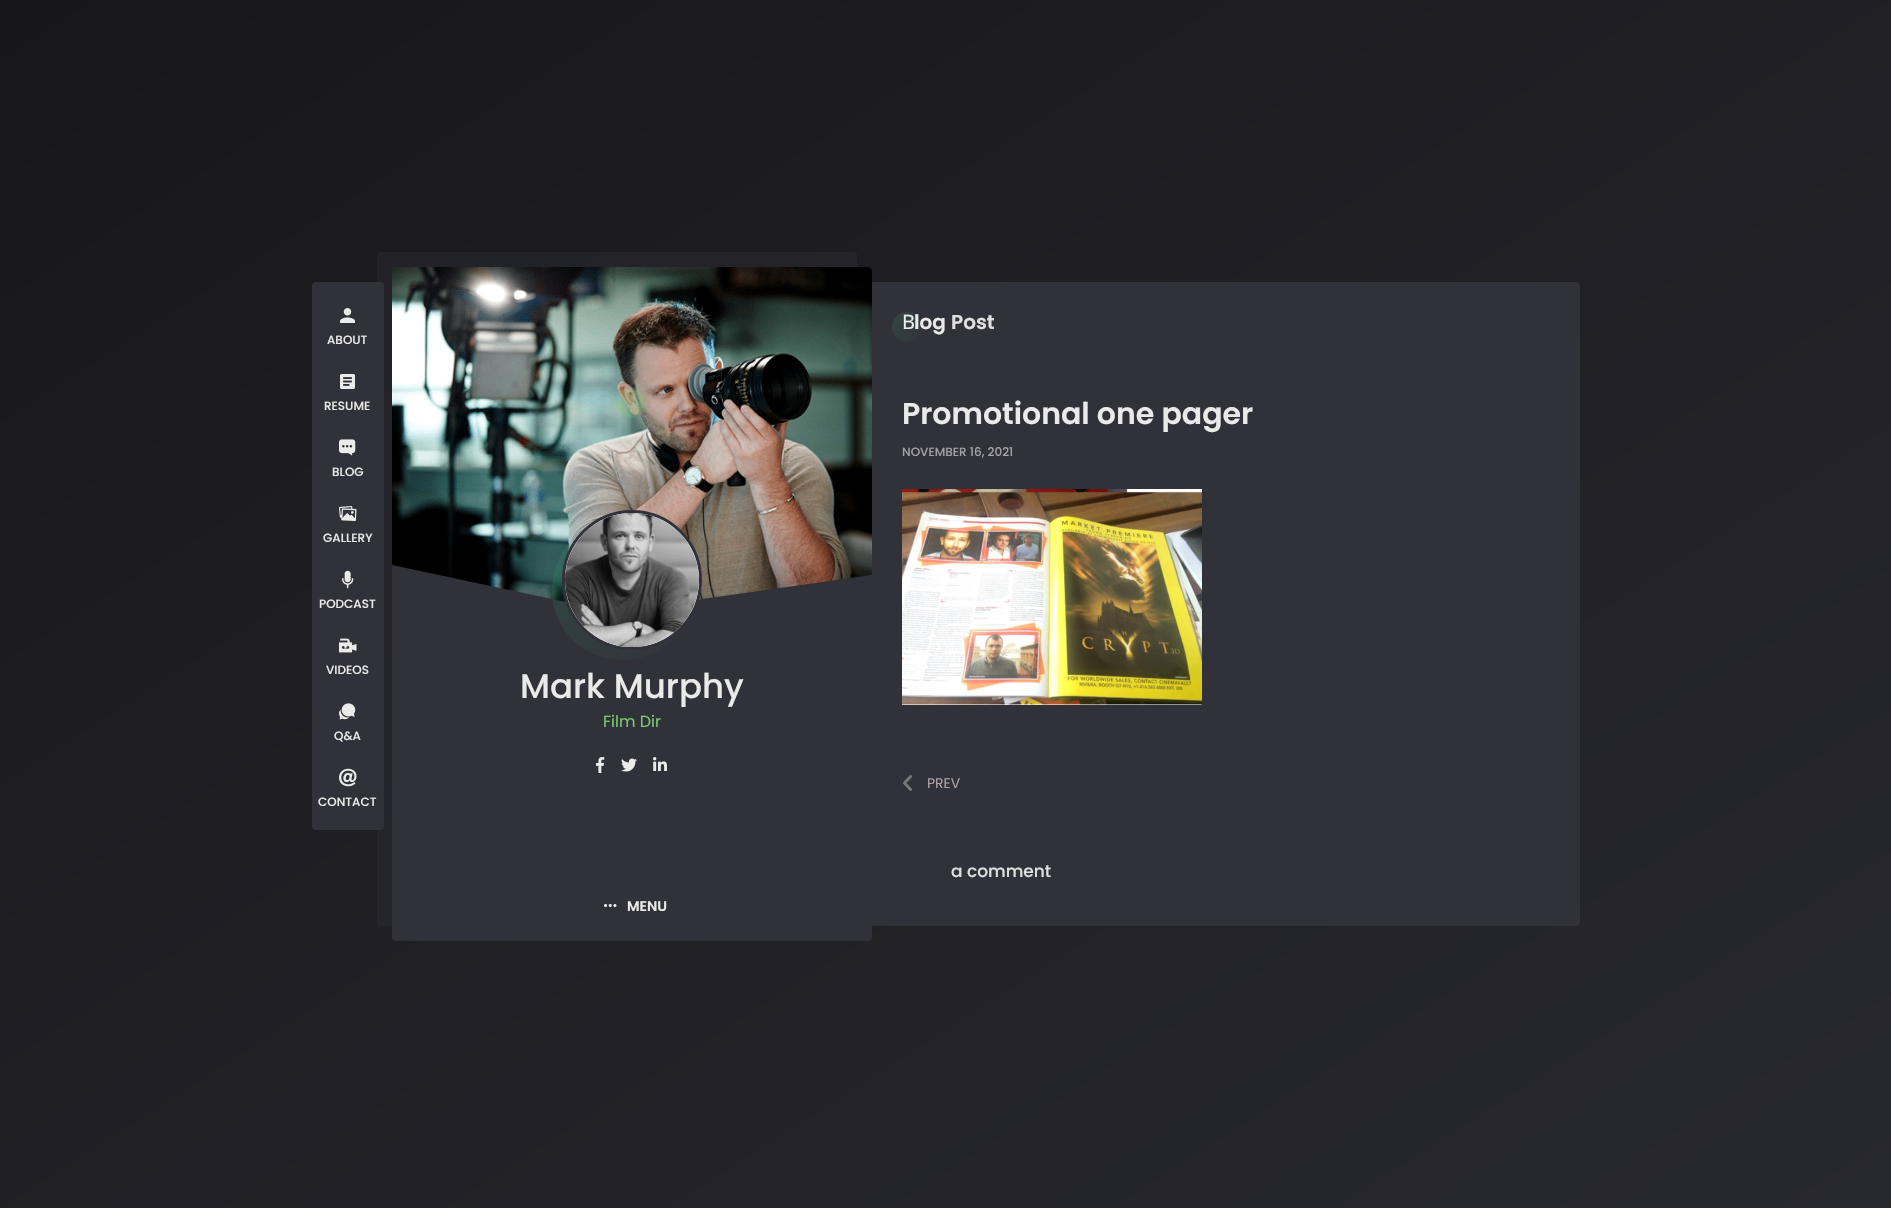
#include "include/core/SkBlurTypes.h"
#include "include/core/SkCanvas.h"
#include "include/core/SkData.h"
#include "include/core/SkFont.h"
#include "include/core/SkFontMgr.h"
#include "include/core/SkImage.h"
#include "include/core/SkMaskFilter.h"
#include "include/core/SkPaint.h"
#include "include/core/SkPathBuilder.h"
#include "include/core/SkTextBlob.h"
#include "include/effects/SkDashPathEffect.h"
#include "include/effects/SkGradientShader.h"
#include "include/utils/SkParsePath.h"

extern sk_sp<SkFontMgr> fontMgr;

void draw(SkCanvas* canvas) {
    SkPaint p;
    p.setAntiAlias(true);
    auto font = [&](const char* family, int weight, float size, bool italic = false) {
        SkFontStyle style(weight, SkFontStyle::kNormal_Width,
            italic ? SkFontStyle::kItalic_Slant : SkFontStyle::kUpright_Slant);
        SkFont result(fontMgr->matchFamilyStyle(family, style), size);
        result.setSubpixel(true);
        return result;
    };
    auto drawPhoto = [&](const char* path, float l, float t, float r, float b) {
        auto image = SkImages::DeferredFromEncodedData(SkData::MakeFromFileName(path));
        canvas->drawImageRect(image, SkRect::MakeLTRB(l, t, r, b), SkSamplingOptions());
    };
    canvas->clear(0xFFFFFFFF);
    {
        const SkColor colors[] = {0xFF17171B, 0xFF28282F};
        const float stops[] = {0, 1};
        const SkPoint ends[] = {{397, -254}, {1494, 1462}};
        p.setShader(SkGradientShader::MakeLinear(ends, colors, stops, 2, SkTileMode::kClamp));
        p.setAlpha(255);
    }
    canvas->drawRect(SkRect::MakeLTRB(0, 0, 1891, 1208), p);
    p.setShader(nullptr);
    p.setColor(0x4D31313A);
    canvas->drawRoundRect(SkRect::MakeLTRB(377, 252, 857, 926), 4, 4, p);
    p.setColor(0xFF31313A);
    canvas->drawRoundRect(SkRect::MakeLTRB(312, 282, 384, 830), 4, 4, p);
    drawPhoto("media/1.png", 340, 308, 355, 323);
    auto font1 = font("Poppins", 500, 12);
    p.setColor(0xFFEAEAEB);
    canvas->drawString("ABOUT", 327, 344, font1, p);
    drawPhoto("media/2.png", 340, 374, 355, 389);
    canvas->drawString("RESUME", 324, 410, font1, p);
    drawPhoto("media/3.png", 339, 439, 356, 456);
    canvas->drawString("BLOG", 332, 476, font1, p);
    drawPhoto("media/4.png", 339, 506, 357, 521);
    canvas->drawString("GALLERY", 323, 542, font1, p);
    drawPhoto("media/5.png", 342, 570, 354, 589);
    canvas->drawString("PODCAST", 319, 608, font1, p);
    drawPhoto("media/6.png", 339, 638, 357, 653);
    canvas->drawString("VIDEOS", 326, 674, font1, p);
    drawPhoto("media/7.png", 339, 703, 356, 720);
    canvas->drawString("Q&A", 334, 740, font1, p);
    drawPhoto("media/8.png", 339, 768, 357, 787);
    canvas->drawString("CONTACT", 318, 806, font1, p);
    p.setColor(0xFF31313A);
    canvas->drawRoundRect(SkRect::MakeLTRB(392, 267, 872, 941), 4, 4, p);
    drawPhoto("media/9.png", 392, 267, 872, 603);
    canvas->drawPath(SkPathBuilder().moveTo(392, 816).lineTo(392, 565).lineTo(772, 646).lineTo(721, 885).close().detach(), p);
    canvas->drawPath(SkPathBuilder().moveTo(497, 628).lineTo(872, 575).lineTo(872, 823).lineTo(531, 870).close().detach(), p);
    {
        const SkColor colors[] = {0x262ECA7F, 0x032ECA7F};
        const float stops[] = {0, 1};
        const SkPoint ends[] = {{552, 520}, {692, 660}};
        p.setShader(SkGradientShader::MakeLinear(ends, colors, stops, 2, SkTileMode::kClamp));
        p.setAlpha(255);
    }
    canvas->drawCircle(622, 590, 70, p);
    p.setShader(nullptr);
    p.setColor(0xFFFFFFFF);
    canvas->drawCircle(632, 580, 68.5f, p);
    p.setStyle(SkPaint::kStroke_Style);
    p.setStrokeWidth(3);
    p.setColor(0xFF31313A);
    canvas->drawCircle(632, 580, 68.5f, p);
    drawPhoto("media/10.png", 565, 513, 699, 647);
    auto font2 = font("Poppins", 500, 34);
    p.setStyle(SkPaint::kFill_Style);
    p.setColor(0xFFEAEAEB);
    canvas->drawString("Mark Murphy", 520, 698, font2, p);
    auto font3 = font("Poppins", 400, 16);
    p.setColor(0xFF78CC6D);
    canvas->drawString("Film Dir", 603, 727, font3, p);
    drawPhoto("media/11.png", 596, 757, 605, 773);
    drawPhoto("media/12.png", 621, 758, 637, 772);
    drawPhoto("media/13.png", 653, 757, 667, 771);
    drawPhoto("media/14.png", 604, 904, 617, 907);
    auto font4 = font("Poppins", 600, 14);
    p.setColor(0xFFEAEAEB);
    canvas->drawString("MENU", 627, 911, font4, p);
    p.setColor(0xFF31313A);
    canvas->drawPath(SkPathBuilder().moveTo(872, 282).lineTo(1576, 282).cubicTo(1578, 282, 1580, 284, 1580, 286).lineTo(1580, 922).cubicTo(1580, 924, 1578, 926, 1576, 926).lineTo(872, 926).close().detach(), p);
    {
        const SkColor colors[] = {0xFF314844, 0xFF31333B};
        const float stops[] = {0, 1};
        const SkPoint ends[] = {{892, 312}, {922, 342}};
        p.setShader(SkGradientShader::MakeLinear(ends, colors, stops, 2, SkTileMode::kClamp));
        p.setAlpha(255);
    }
    canvas->drawCircle(907, 327, 15, p);
    auto font5 = font("Noto Sans", 400, 20);
    p.setShader(nullptr);
    p.setColor(0xFFEAEAEB);
    canvas->drawString("B", 902, 329, font5, p);
    auto font6 = font("Poppins", 600, 20);
    canvas->drawString("log", 914, 329, font6, p);
    p.setColor(0xFFE0E0E1);
    canvas->drawString("Post", 951, 329, font6, p);
    auto font7 = font("Poppins", 600, 30);
    p.setColor(0xFFEAEAEB);
    canvas->drawString("Promotional one pager", 902, 424, font7, p);
    p.setColor(0xFFA2A2A6);
    canvas->drawString("NOVEMBER 16, 2021", 902, 456, font1, p);
    drawPhoto("media/15.png", 902, 489, 1202, 705);
    drawPhoto("media/16.png", 903, 775, 912, 791);
    auto font8 = font("Poppins", 400, 14);
    p.setColor(0xFFACA3A3);
    canvas->drawString("PREV", 927, 788, font8, p);
    auto font9 = font("Poppins", 500, 17);
    p.setColor(0xFFE0E0E1);
    canvas->drawString("a comment", 951, 877, font9, p);
    p.setColor(0x4078CC6D);
    canvas->drawCircle(631, 403, 15, p);
}
